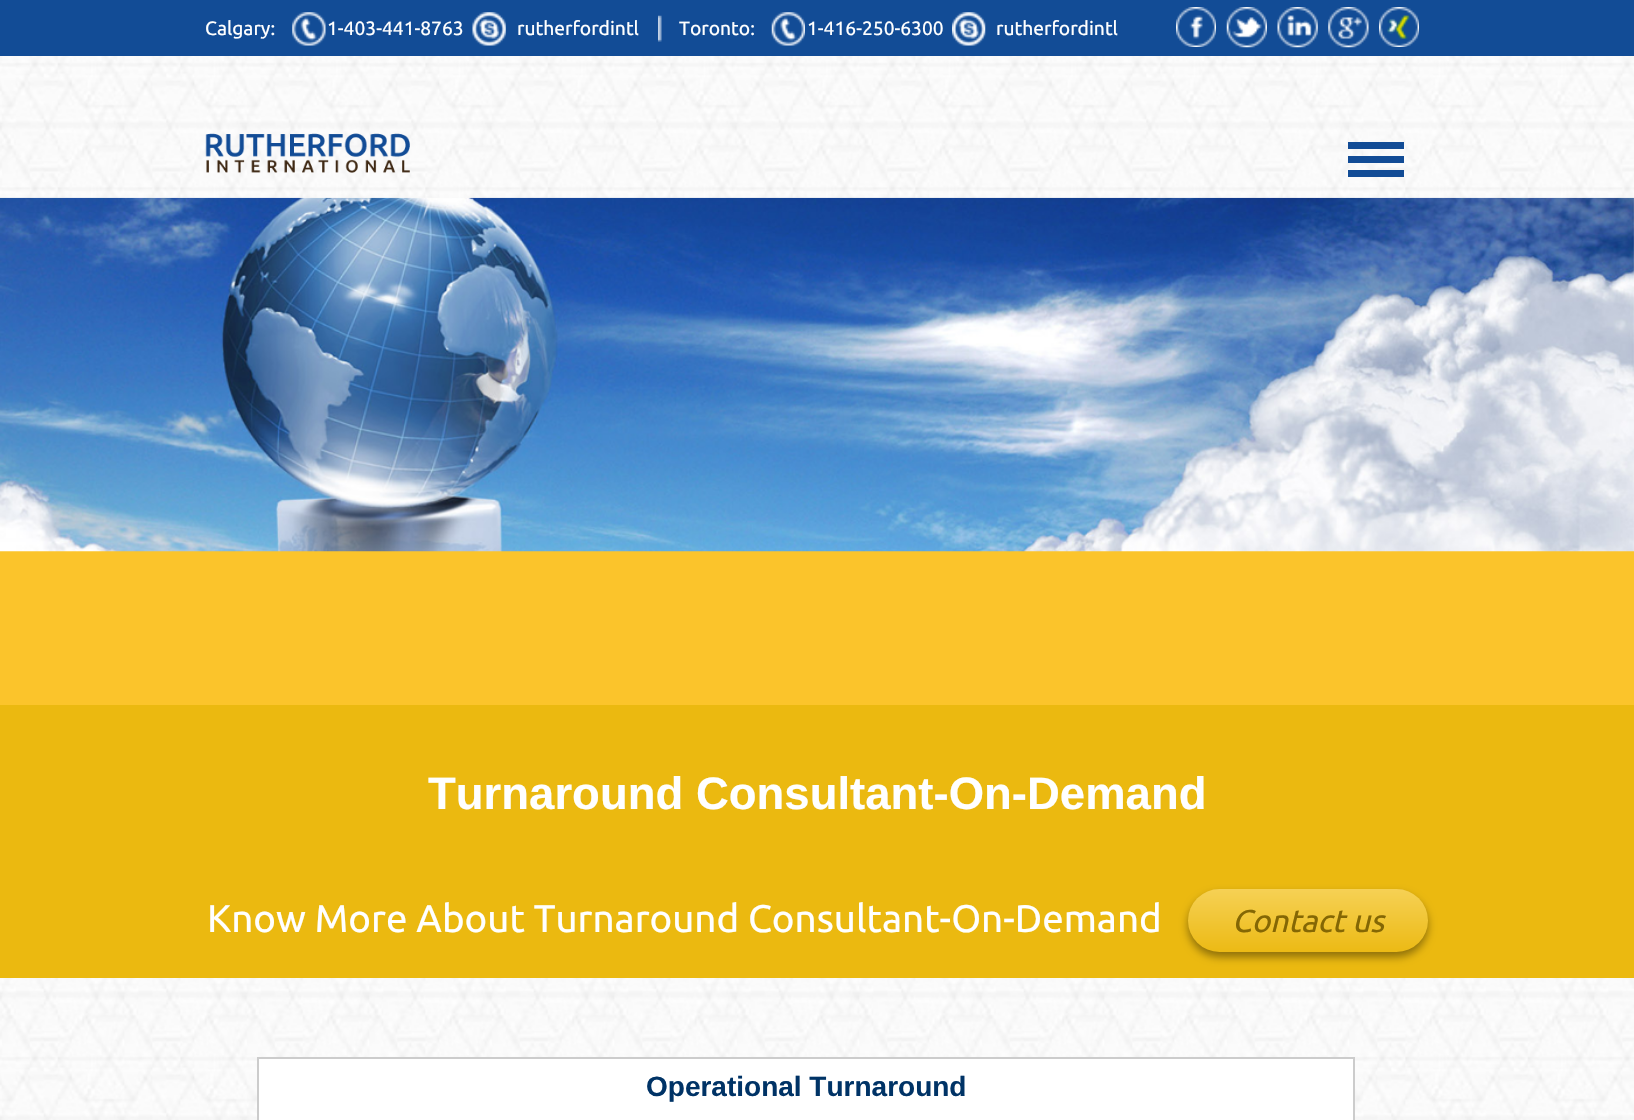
#include "include/core/SkBlurTypes.h"
#include "include/core/SkCanvas.h"
#include "include/core/SkData.h"
#include "include/core/SkFont.h"
#include "include/core/SkFontMgr.h"
#include "include/core/SkImage.h"
#include "include/core/SkMaskFilter.h"
#include "include/core/SkPaint.h"
#include "include/core/SkPathBuilder.h"
#include "include/core/SkTextBlob.h"
#include "include/effects/SkDashPathEffect.h"
#include "include/effects/SkGradientShader.h"
#include "include/utils/SkParsePath.h"

extern sk_sp<SkFontMgr> fontMgr;

void draw(SkCanvas* canvas) {
    SkPaint p;
    p.setAntiAlias(true);
    auto font = [&](const char* family, int weight, float size, bool italic = false) {
        SkFontStyle style(weight, SkFontStyle::kNormal_Width,
            italic ? SkFontStyle::kItalic_Slant : SkFontStyle::kUpright_Slant);
        SkFont result(fontMgr->matchFamilyStyle(family, style), size);
        result.setSubpixel(true);
        return result;
    };
    auto drawPhoto = [&](const char* path, float l, float t, float r, float b) {
        auto image = SkImages::DeferredFromEncodedData(SkData::MakeFromFileName(path));
        canvas->drawImageRect(image, SkRect::MakeLTRB(l, t, r, b), SkSamplingOptions());
    };
    canvas->clear(0xFFFFFFFF);
    drawPhoto("media/1.png", 0, 56, 1634, 1120);
    p.setColor(0xFF124C96);
    canvas->drawRect(SkRect::MakeLTRB(0, 0, 1634, 56), p);
    drawPhoto("media/2.png", 658, 15, 662, 42);
    auto font1 = font("Ubuntu", 400, 19.25f);
    p.setColor(0xFFFFFFFF);
    canvas->drawString("Calgary:", 205, 35, font1, p);
    drawPhoto("media/3.png", 292, 12, 326, 46);
    canvas->drawString("1-403-441-8763", 327, 35, font1, p);
    drawPhoto("media/4.png", 472, 12, 506, 46);
    canvas->drawString("rutherfordintl", 517, 35, font1, p);
    canvas->drawString("Toronto:", 679, 35, font1, p);
    drawPhoto("media/5.png", 771, 12, 805, 46);
    canvas->drawString("1-416-250-6300", 807, 35, font1, p);
    drawPhoto("media/6.png", 952, 12, 986, 46);
    canvas->drawString("rutherfordintl", 996, 35, font1, p);
    drawPhoto("media/7.png", 1176, 7, 1216, 47);
    drawPhoto("media/8.png", 1226, 7, 1267, 48);
    drawPhoto("media/9.png", 1277, 7, 1318, 48);
    drawPhoto("media/10.png", 1328, 7, 1369, 48);
    drawPhoto("media/11.png", 1379, 7, 1419, 47);
    drawPhoto("media/12.png", 205, 133, 410, 173);
    {
        const struct { float l, t, r, b; SkColor color; } items[] = {
            {1348, 170, 1404, 177, 0xFF124C96},
            {1348, 142, 1404, 149, 0xFF124C96},
            {1348, 156, 1404, 163, 0xFF124C96},
            {0, 551, 1634, 705, 0xFFFBC42B},
        };
        for (auto [l, t, r, b, color] : items) {
            p.setColor(color);
            canvas->drawRect(SkRect::MakeLTRB(l, t, r, b), p);
        }
    }
    drawPhoto("media/13.png", 0, 197, 1634, 552);
    p.setColor(0xFFEBB910);
    canvas->drawRect(SkRect::MakeLTRB(0, 705, 1634, 978), p);
    auto font2 = font("Liberation Sans", 700, 45.5f);
    p.setColor(0xFFFFFFFF);
    canvas->drawString("Turnaround Consultant-On-Demand", 428, 809, font2, p);
    auto font3 = font("Ubuntu", 400, 38.5f);
    canvas->drawString("Know More About Turnaround Consultant-On-Demand", 207, 932, font3, p);
    p.setColor(0x66000000);
    p.setMaskFilter(SkMaskFilter::MakeBlur(kNormal_SkBlurStyle, 4.5f));
    canvas->drawRoundRect(SkRect::MakeLTRB(1188, 894, 1428, 957), 31.5f, 31.5f, p);
    p.setMaskFilter(nullptr);
    {
        const SkColor colors[] = {0xFFF6D155, 0xFFECBA14};
        const float stops[] = {0, 1};
        const SkPoint ends[] = {{1308, 889}, {1308, 952}};
        p.setShader(SkGradientShader::MakeLinear(ends, colors, stops, 2, SkTileMode::kClamp));
        p.setAlpha(255);
    }
    canvas->drawRoundRect(SkRect::MakeLTRB(1188, 889, 1428, 952), 31.5f, 31.5f, p);
    auto font4 = font("Ubuntu", 400, 31.5f, true);
    p.setShader(nullptr);
    p.setColor(0xFF846704);
    canvas->drawString("Contact us", 1232, 932, font4, p);
    p.setColor(0xFFFFFFFF);
    canvas->drawRect(SkRect::MakeLTRB(258, 1058, 1354, 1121), p);
    p.setStyle(SkPaint::kStroke_Style);
    p.setStrokeWidth(2);
    p.setColor(0xFFCCCCCC);
    canvas->drawRect(SkRect::MakeLTRB(258, 1058, 1354, 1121), p);
    auto font5 = font("Liberation Sans", 700, 28);
    p.setStyle(SkPaint::kFill_Style);
    p.setColor(0xFF003366);
    canvas->drawString("Operational Turnaround", 646, 1096, font5, p);
}
